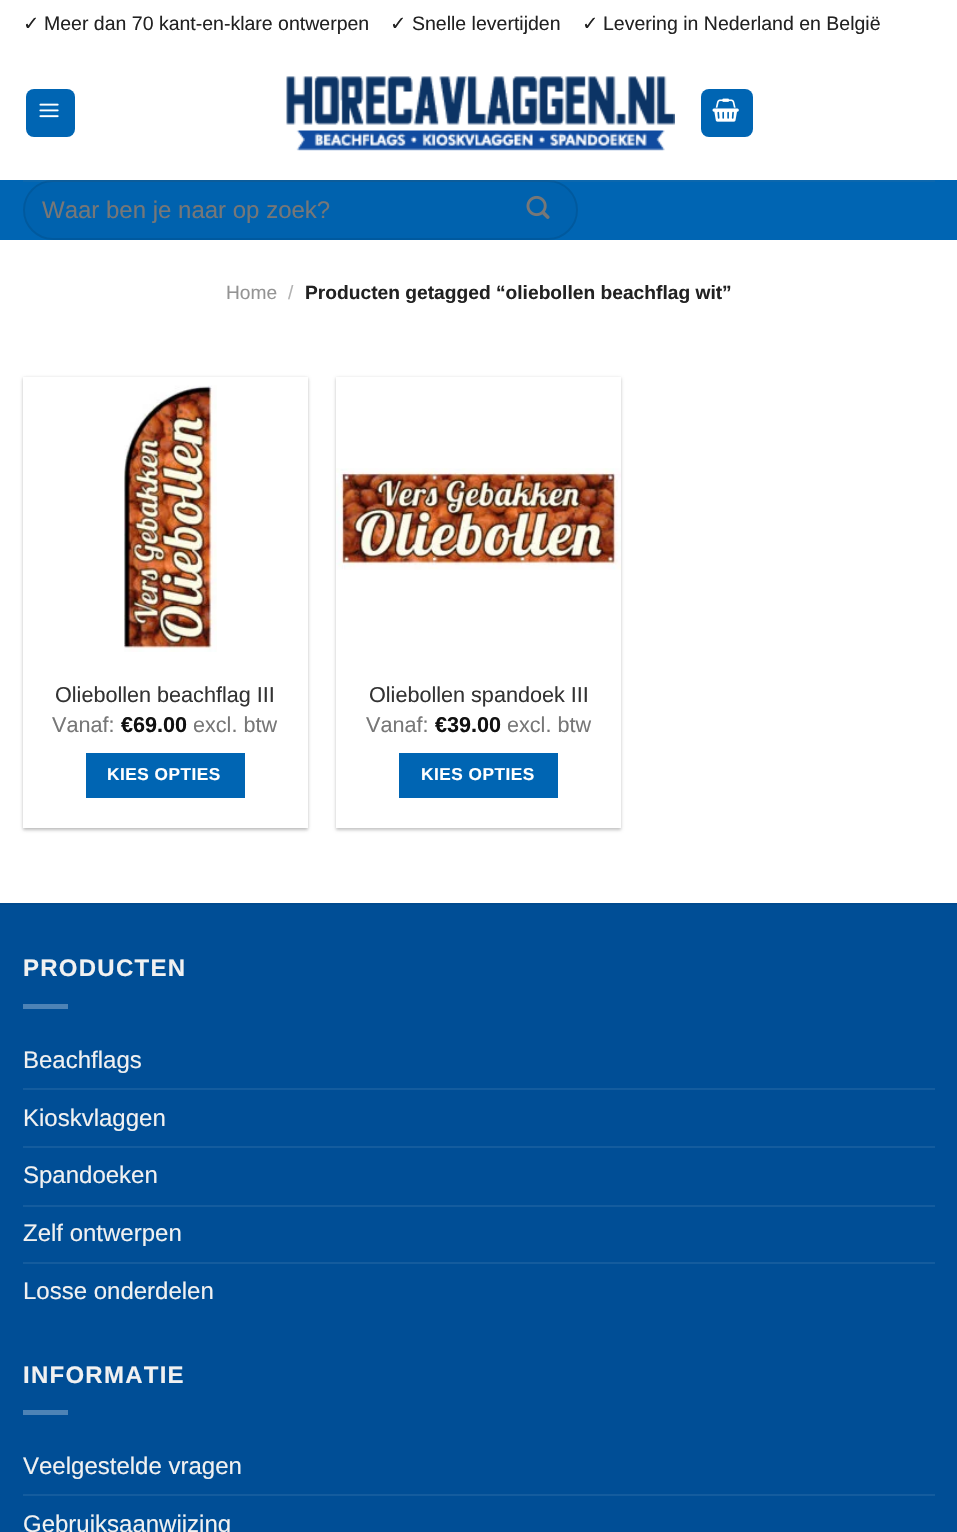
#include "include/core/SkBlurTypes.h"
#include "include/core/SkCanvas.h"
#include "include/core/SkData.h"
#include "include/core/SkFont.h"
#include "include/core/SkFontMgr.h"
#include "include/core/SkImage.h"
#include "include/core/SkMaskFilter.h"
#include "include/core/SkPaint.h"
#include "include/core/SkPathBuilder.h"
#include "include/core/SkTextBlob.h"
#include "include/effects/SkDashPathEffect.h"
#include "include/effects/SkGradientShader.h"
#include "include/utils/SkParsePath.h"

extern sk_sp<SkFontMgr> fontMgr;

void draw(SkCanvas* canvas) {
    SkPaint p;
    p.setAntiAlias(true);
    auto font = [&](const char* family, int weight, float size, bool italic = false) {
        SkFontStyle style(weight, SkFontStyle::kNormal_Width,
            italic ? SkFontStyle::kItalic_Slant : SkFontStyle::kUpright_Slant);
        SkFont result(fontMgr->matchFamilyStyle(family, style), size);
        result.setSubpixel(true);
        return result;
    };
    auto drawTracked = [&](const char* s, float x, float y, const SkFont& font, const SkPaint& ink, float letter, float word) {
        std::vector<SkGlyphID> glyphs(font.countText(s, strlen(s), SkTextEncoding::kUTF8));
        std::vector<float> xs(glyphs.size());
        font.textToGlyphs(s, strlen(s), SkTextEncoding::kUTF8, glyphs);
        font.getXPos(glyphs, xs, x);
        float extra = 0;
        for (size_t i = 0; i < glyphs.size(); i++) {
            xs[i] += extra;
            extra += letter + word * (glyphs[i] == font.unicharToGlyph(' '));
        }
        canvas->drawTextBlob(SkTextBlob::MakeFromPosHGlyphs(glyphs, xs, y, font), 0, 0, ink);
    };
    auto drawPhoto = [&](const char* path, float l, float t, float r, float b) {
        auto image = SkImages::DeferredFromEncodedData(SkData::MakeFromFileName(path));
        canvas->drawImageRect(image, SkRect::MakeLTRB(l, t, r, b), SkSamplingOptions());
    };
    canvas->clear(0xFFFFFFFF);
    auto font1 = font("DejaVu Sans", 400, 19.5f);
    p.setColor(0xFF222222);
    canvas->drawString("✓", 23, 30, font1, p);
    auto font2 = font("Liberation Sans", 400, 19.5f);
    canvas->drawString("Meer dan 70 kant-en-klare ontwerpen", 44, 30, font2, p);
    canvas->drawString("✓", 390, 30, font1, p);
    canvas->drawString("Snelle levertijden", 412, 30, font2, p);
    canvas->drawString("✓", 582, 30, font1, p);
    canvas->drawString("Levering in Nederland en België", 603, 30, font2, p);
    p.setColor(0xFF0065B3);
    canvas->drawRoundRect(SkRect::MakeLTRB(26, 89, 75, 137), 8, 8, p);
    drawPhoto("media/1.png", 39, 103, 59, 118);
    drawPhoto("media/2.png", 286, 76, 675, 151);
    canvas->drawRoundRect(SkRect::MakeLTRB(701, 89, 753, 137), 8, 8, p);
    drawPhoto("media/3.png", 712, 98, 739, 122);
    canvas->drawRect(SkRect::MakeLTRB(0, 180, 957, 240), p);
    p.setColor(0xFF0062AE);
    canvas->drawRoundRect(SkRect::MakeLTRB(24, 181, 577, 239), 29, 29, p);
    p.setStyle(SkPaint::kStroke_Style);
    p.setStrokeWidth(2);
    p.setColor(0xFF00599E);
    canvas->drawRoundRect(SkRect::MakeLTRB(24, 181, 577, 239), 29, 29, p);
    p.setStyle(SkPaint::kFill_Style);
    p.setColor(0x1A777777);
    canvas->drawRect(SkRect::MakeLTRB(23, 180, 935, 182), p);
    auto font3 = font("Liberation Sans", 400, 24);
    p.setColor(0xFF777777);
    canvas->drawString("Waar ben je naar op zoek?", 42, 218, font3, p);
    drawPhoto("media/4.png", 526, 195, 550, 219);
    auto font4 = font("Liberation Sans", 400, 19.2f);
    p.setColor(0xFF949494);
    canvas->drawString("Home", 226, 299, font4, p);
    p.setColor(0xFFB2B2B2);
    canvas->drawString("/", 288, 299, font4, p);
    auto font5 = font("Liberation Sans", 700, 19.2f);
    p.setColor(0xFF222222);
    canvas->drawString("Producten getagged “oliebollen beachflag wit”", 305, 299, font5, p);
    p.setColor(0x3D000000);
    p.setMaskFilter(SkMaskFilter::MakeBlur(kNormal_SkBlurStyle, 1.5f));
    canvas->drawRect(SkRect::MakeLTRB(23, 378, 308, 830), p);
    p.setMaskFilter(nullptr);
    p.setColor(0x1F000000);
    p.setMaskFilter(SkMaskFilter::MakeBlur(kNormal_SkBlurStyle, 2));
    canvas->drawRect(SkRect::MakeLTRB(26, 381, 305, 827), p);
    p.setMaskFilter(nullptr);
    p.setColor(0xFFFFFFFF);
    canvas->drawRect(SkRect::MakeLTRB(23, 377, 308, 828), p);
    drawPhoto("media/5.png", 124, 385, 217, 652);
    auto font6 = font("Liberation Sans", 400, 21.6f);
    p.setColor(0xFF333333);
    canvas->drawString("Oliebollen beachflag III", 55, 702, font6, p);
    p.setColor(0xFF777777);
    canvas->drawString("Vanaf:", 52, 732, font6, p);
    auto font7 = font("Liberation Sans", 700, 21.6f);
    p.setColor(0xFF111111);
    canvas->drawString("€69.00", 121, 732, font7, p);
    p.setColor(0xFF777777);
    canvas->drawString("excl. btw", 193, 732, font6, p);
    p.setColor(0xFF0065B3);
    canvas->drawRect(SkRect::MakeLTRB(86, 753, 245, 798), p);
    auto font8 = font("Liberation Sans", 700, 17.25f);
    p.setColor(0xFFFFFFFF);
    drawTracked("KIES OPTIES", 107, 780, font8, p, 0.5f, 0);
    canvas->save();
    canvas->clipPath(SkPathBuilder(SkPathFillType::kEvenOdd).moveTo(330, 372).lineTo(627, 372).lineTo(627, 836).lineTo(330, 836).close().moveTo(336, 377).lineTo(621, 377).lineTo(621, 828).lineTo(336, 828).close().detach(), true);
    p.setColor(0x3D000000);
    p.setMaskFilter(SkMaskFilter::MakeBlur(kNormal_SkBlurStyle, 1.5f));
    canvas->drawRect(SkRect::MakeLTRB(336, 378, 621, 830), p);
    p.setMaskFilter(nullptr);
    canvas->restore();
    drawPhoto("media/6.png", 336, 468, 621, 570);
    p.setColor(0xFF333333);
    canvas->drawString("Oliebollen spandoek III", 369, 702, font6, p);
    p.setColor(0xFF777777);
    canvas->drawString("Vanaf:", 366, 732, font6, p);
    p.setColor(0xFF111111);
    canvas->drawString("€39.00", 435, 732, font7, p);
    p.setColor(0xFF777777);
    canvas->drawString("excl. btw", 507, 732, font6, p);
    p.setColor(0xFF0065B3);
    canvas->drawRect(SkRect::MakeLTRB(399, 753, 558, 798), p);
    p.setColor(0xFFFFFFFF);
    drawTracked("KIES OPTIES", 421, 780, font8, p, 0.5f, 0);
    p.setColor(0xFF004E96);
    canvas->drawRect(SkRect::MakeLTRB(0, 905, 957, 1532), p);
    p.setColor(0xFF004A8F);
    canvas->drawRect(SkRect::MakeLTRB(0, 903, 957, 905), p);
    auto font9 = font("Liberation Sans", 700, 24);
    p.setColor(0xFFF1F1F1);
    drawTracked("PRODUCTEN", 23, 976, font9, p, 1.25f, 0);
    p.setColor(0xFF4D83B6);
    canvas->drawRect(SkRect::MakeLTRB(23, 1004, 68, 1009), p);
    p.setColor(0xFFF1F1F1);
    canvas->drawString("Beachflags", 23, 1068, font3, p);
    p.setColor(0xFF145C9E);
    canvas->drawRect(SkRect::MakeLTRB(23, 1088, 935, 1090), p);
    p.setColor(0xFFF1F1F1);
    canvas->drawString("Kioskvlaggen", 23, 1126, font3, p);
    p.setColor(0xFF145C9E);
    canvas->drawRect(SkRect::MakeLTRB(23, 1146, 935, 1148), p);
    p.setColor(0xFFF1F1F1);
    canvas->drawString("Spandoeken", 23, 1183, font3, p);
    p.setColor(0xFF145C9E);
    canvas->drawRect(SkRect::MakeLTRB(23, 1205, 935, 1207), p);
    p.setColor(0xFFF1F1F1);
    canvas->drawString("Zelf ontwerpen", 23, 1241, font3, p);
    p.setColor(0xFF145C9E);
    canvas->drawRect(SkRect::MakeLTRB(23, 1262, 935, 1264), p);
    p.setColor(0xFFF1F1F1);
    canvas->drawString("Losse onderdelen", 23, 1299, font3, p);
    drawTracked("INFORMATIE", 23, 1383, font9, p, 1.25f, 0);
    p.setColor(0xFF4D83B6);
    canvas->drawRect(SkRect::MakeLTRB(23, 1410, 68, 1415), p);
    p.setColor(0xFFF1F1F1);
    canvas->drawString("Veelgestelde vragen", 23, 1474, font3, p);
    p.setColor(0xFF145C9E);
    canvas->drawRect(SkRect::MakeLTRB(23, 1494, 935, 1496), p);
    p.setColor(0xFFF1F1F1);
    canvas->drawString("Gebruiksaanwijzing", 23, 1532, font3, p);
}
